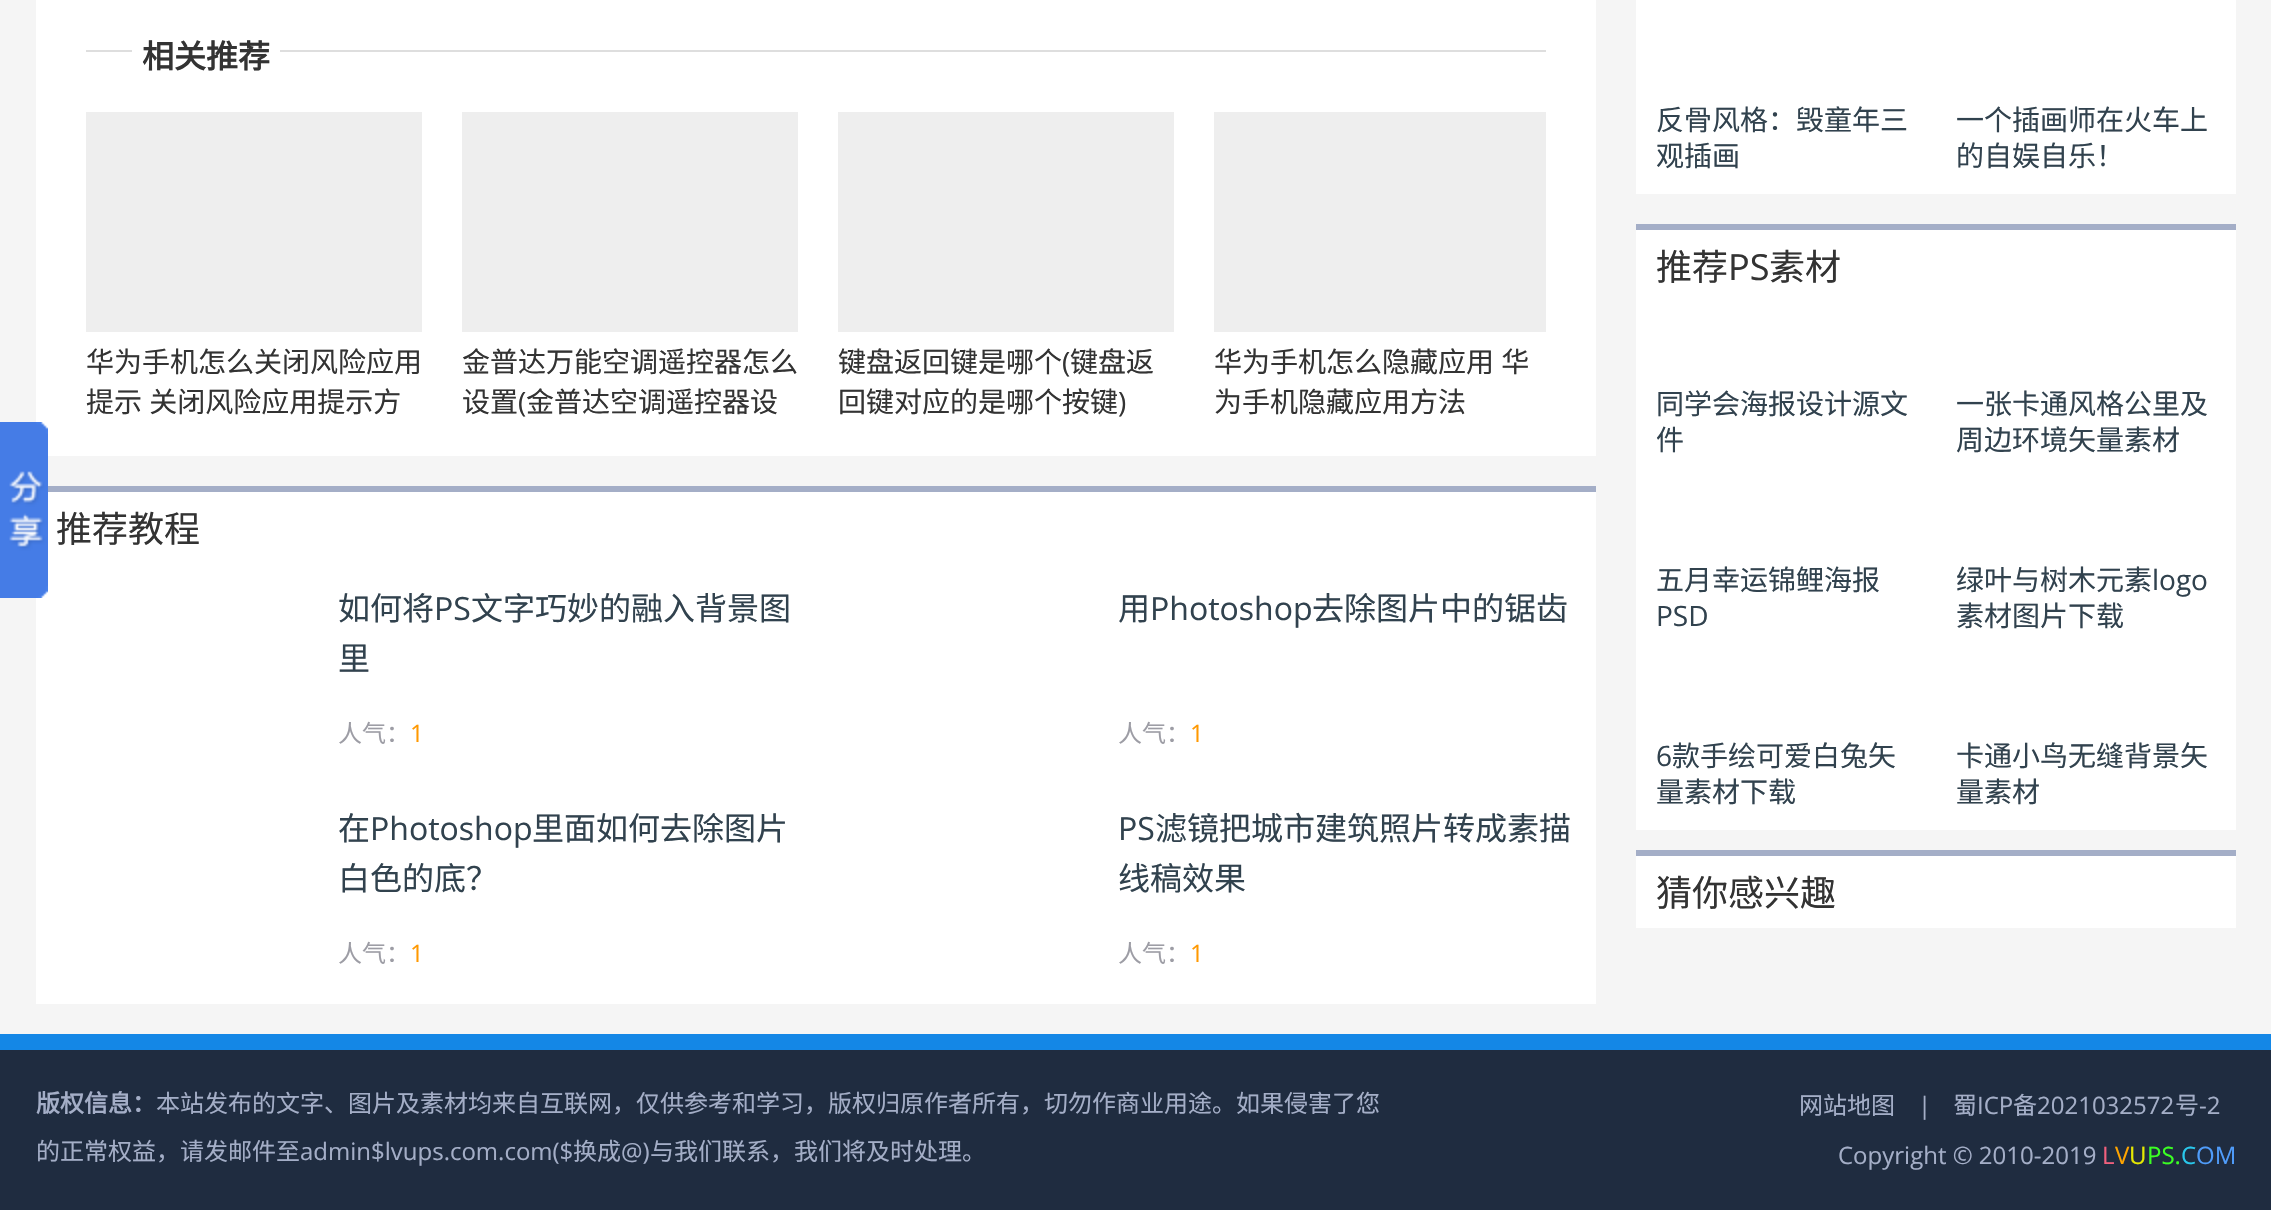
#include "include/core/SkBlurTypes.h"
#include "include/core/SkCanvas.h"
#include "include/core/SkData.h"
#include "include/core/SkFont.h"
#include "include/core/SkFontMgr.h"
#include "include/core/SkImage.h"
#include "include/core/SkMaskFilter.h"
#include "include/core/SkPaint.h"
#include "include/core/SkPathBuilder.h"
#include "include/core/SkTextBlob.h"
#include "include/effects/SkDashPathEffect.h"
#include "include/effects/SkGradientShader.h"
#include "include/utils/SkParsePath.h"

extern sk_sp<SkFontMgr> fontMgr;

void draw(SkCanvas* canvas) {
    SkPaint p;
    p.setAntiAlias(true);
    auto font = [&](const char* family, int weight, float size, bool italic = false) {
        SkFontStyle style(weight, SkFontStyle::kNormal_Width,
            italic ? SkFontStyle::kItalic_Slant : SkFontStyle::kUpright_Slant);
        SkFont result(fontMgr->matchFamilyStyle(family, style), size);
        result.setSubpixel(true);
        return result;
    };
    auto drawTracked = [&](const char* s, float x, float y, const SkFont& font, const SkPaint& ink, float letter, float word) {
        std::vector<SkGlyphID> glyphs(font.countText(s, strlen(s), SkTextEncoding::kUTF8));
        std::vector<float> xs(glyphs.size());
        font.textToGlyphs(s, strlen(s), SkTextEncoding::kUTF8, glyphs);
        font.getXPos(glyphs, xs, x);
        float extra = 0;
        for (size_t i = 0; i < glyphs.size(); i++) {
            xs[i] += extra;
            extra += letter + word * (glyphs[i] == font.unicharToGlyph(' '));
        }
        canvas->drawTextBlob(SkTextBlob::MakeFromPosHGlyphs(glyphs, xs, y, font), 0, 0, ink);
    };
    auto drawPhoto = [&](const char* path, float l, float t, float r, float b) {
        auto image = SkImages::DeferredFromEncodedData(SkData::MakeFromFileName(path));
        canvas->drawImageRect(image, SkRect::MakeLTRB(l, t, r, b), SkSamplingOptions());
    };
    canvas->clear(0xFFF5F5F5);
    p.setColor(0xFFFFFFFF);
    canvas->drawRect(SkRect::MakeLTRB(36, 0, 1596, 456), p);
    canvas->drawRect(SkRect::MakeLTRB(36, 492, 1596, 1004), p);
    drawPhoto("media/1.png", 0, 422, 48, 598);
    p.setColor(0xFFDEDEDE);
    canvas->drawRect(SkRect::MakeLTRB(86, 50, 1546, 52), p);
    p.setColor(0xFFFFFFFF);
    canvas->drawRect(SkRect::MakeLTRB(132, 50, 280, 52), p);
    auto font1 = font("Noto Sans CJK SC", 700, 32);
    p.setColor(0xFF333333);
    canvas->drawString("相关推荐", 142, 68, font1, p);
    p.setColor(0xFFEEEEEE);
    canvas->drawRect(SkRect::MakeLTRB(86, 112, 422, 332), p);
    auto font2 = font("Noto Sans CJK SC", 400, 28);
    p.setColor(0xFF333333);
    canvas->drawString("华为手机怎么关闭风险应用", 86, 372, font2, p);
    drawTracked("提示 关闭风险应用提示方", 86, 412, font2, p, 0, 1);
    p.setColor(0xFFEEEEEE);
    canvas->drawRect(SkRect::MakeLTRB(462, 112, 798, 332), p);
    p.setColor(0xFF333333);
    canvas->drawString("金普达万能空调遥控器怎么", 462, 372, font2, p);
    canvas->drawString("设置", 462, 412, font2, p);
    auto font3 = font("Open Sans", 400, 28);
    canvas->drawString("(", 518, 412, font3, p);
    canvas->drawString("金普达空调遥控器设", 526, 412, font2, p);
    p.setColor(0xFFEEEEEE);
    canvas->drawRect(SkRect::MakeLTRB(838, 112, 1174, 332), p);
    p.setColor(0xFF333333);
    canvas->drawString("键盘返回键是哪个", 838, 372, font2, p);
    canvas->drawString("(", 1062, 372, font3, p);
    canvas->drawString("键盘返", 1070, 372, font2, p);
    canvas->drawString("回键对应的是哪个按键", 838, 412, font2, p);
    canvas->drawString(")", 1118, 412, font3, p);
    p.setColor(0xFFEEEEEE);
    canvas->drawRect(SkRect::MakeLTRB(1214, 112, 1546, 332), p);
    p.setColor(0xFF333333);
    drawTracked("华为手机怎么隐藏应用 华", 1214, 372, font2, p, 0, 1);
    canvas->drawString("为手机隐藏应用方法", 1214, 412, font2, p);
    p.setColor(0xFFA4AEC7);
    canvas->drawRect(SkRect::MakeLTRB(48, 486, 1596, 492), p);
    auto font4 = font("Noto Sans CJK SC", 400, 36);
    p.setColor(0xFF333333);
    canvas->drawString("推荐教程", 56, 542, font4, p);
    auto font5 = font("Noto Sans CJK SC", 400, 32);
    p.setColor(0xFF31424E);
    canvas->drawString("如何将", 338, 620, font5, p);
    auto font6 = font("Open Sans", 400, 32);
    canvas->drawString("PS", 434, 620, font6, p);
    canvas->drawString("文字巧妙的融入背景图", 471, 620, font5, p);
    canvas->drawString("里", 338, 670, font5, p);
    auto font7 = font("Noto Sans CJK SC", 400, 24);
    p.setColor(0xFF9D9DA5);
    canvas->drawString("人气：", 338, 742, font7, p);
    auto font8 = font("Open Sans", 400, 24);
    p.setColor(0xFFFF9901);
    canvas->drawString("1", 410, 742, font8, p);
    p.setColor(0xFF31424E);
    canvas->drawString("用", 1118, 620, font5, p);
    canvas->drawString("Photoshop", 1150, 620, font6, p);
    canvas->drawString("去除图片中的锯齿", 1312, 620, font5, p);
    p.setColor(0xFF9D9DA5);
    canvas->drawString("人气：", 1118, 742, font7, p);
    p.setColor(0xFFFF9901);
    canvas->drawString("1", 1190, 742, font8, p);
    p.setColor(0xFF31424E);
    canvas->drawString("在", 338, 840, font5, p);
    canvas->drawString("Photoshop", 370, 840, font6, p);
    canvas->drawString("里面如何去除图片", 532, 840, font5, p);
    canvas->drawString("白色的底？", 338, 890, font5, p);
    p.setColor(0xFF9D9DA5);
    canvas->drawString("人气：", 338, 962, font7, p);
    p.setColor(0xFFFF9901);
    canvas->drawString("1", 410, 962, font8, p);
    p.setColor(0xFF31424E);
    canvas->drawString("PS", 1118, 840, font6, p);
    canvas->drawString("滤镜把城市建筑照片转成素描", 1155, 840, font5, p);
    canvas->drawString("线稿效果", 1118, 890, font5, p);
    p.setColor(0xFF9D9DA5);
    canvas->drawString("人气：", 1118, 962, font7, p);
    p.setColor(0xFFFF9901);
    canvas->drawString("1", 1190, 962, font8, p);
    p.setColor(0xFFFFFFFF);
    canvas->drawRect(SkRect::MakeLTRB(1636, 0, 2236, 194), p);
    p.setColor(0xFF31424E);
    {
        const struct { const char* s; float x, y; } items[] = {
            {"反骨风格：毁童年三", 1656, 130},
            {"观插画", 1656, 166},
            {"一个插画师在火车上", 1956, 130},
            {"的自娱自乐！", 1956, 166},
        };
        for (auto [s, x, y] : items) {
            canvas->drawString(s, x, y, font2, p);
        }
    }
    p.setColor(0xFFFFFFFF);
    canvas->drawRect(SkRect::MakeLTRB(1636, 230, 2236, 830), p);
    p.setColor(0xFFA4AEC7);
    canvas->drawRect(SkRect::MakeLTRB(1636, 224, 2236, 230), p);
    p.setColor(0xFF333333);
    canvas->drawString("推荐", 1656, 280, font4, p);
    auto font9 = font("Open Sans", 400, 36);
    canvas->drawString("PS", 1728, 280, font9, p);
    canvas->drawString("素材", 1769, 280, font4, p);
    p.setColor(0xFF31424E);
    {
        const struct { const char* s; float x, y; } items[] = {
            {"同学会海报设计源文", 1656, 414},
            {"件", 1656, 450},
            {"一张卡通风格公里及", 1956, 414},
            {"周边环境矢量素材", 1956, 450},
            {"五月幸运锦鲤海报", 1656, 590},
        };
        for (auto [s, x, y] : items) {
            canvas->drawString(s, x, y, font2, p);
        }
    }
    canvas->drawString("PSD", 1656, 626, font3, p);
    canvas->drawString("绿叶与树木元素", 1956, 590, font2, p);
    canvas->drawString("logo", 2152, 590, font3, p);
    canvas->drawString("素材图片下载", 1956, 626, font2, p);
    canvas->drawString("6", 1656, 766, font3, p);
    {
        const struct { const char* s; float x, y; } items[] = {
            {"款手绘可爱白兔矢", 1672, 766},
            {"量素材下载", 1656, 802},
            {"卡通小鸟无缝背景矢", 1956, 766},
            {"量素材", 1956, 802},
        };
        for (auto [s, x, y] : items) {
            canvas->drawString(s, x, y, font2, p);
        }
    }
    p.setColor(0xFFFFFFFF);
    canvas->drawRect(SkRect::MakeLTRB(1636, 856, 2236, 928), p);
    p.setColor(0xFFA4AEC7);
    canvas->drawRect(SkRect::MakeLTRB(1636, 850, 2236, 856), p);
    p.setColor(0xFF333333);
    canvas->drawString("猜你感兴趣", 1656, 906, font4, p);
    p.setColor(0xFF1F2C40);
    canvas->drawRect(SkRect::MakeLTRB(0, 1050, 2271, 1210), p);
    p.setColor(0xFF1487E6);
    canvas->drawRect(SkRect::MakeLTRB(0, 1034, 2271, 1050), p);
    auto font10 = font("Noto Sans CJK SC", 700, 24);
    p.setColor(0xFFA4AEC7);
    canvas->drawString("版权信息：", 36, 1112, font10, p);
    canvas->drawString("本站发布的文字、图片及素材均来自互联网，仅供参考和学习，版权归原作者所有，切勿作商业用途。如果侵害了您", 156, 1112, font7, p);
    canvas->drawString("的正常权益，请发邮件至", 36, 1160, font7, p);
    canvas->drawString("admin$lvups.com.com($", 300, 1160, font8, p);
    canvas->drawString("换成", 573, 1160, font7, p);
    canvas->drawString("@)", 621, 1160, font8, p);
    canvas->drawString("与我们联系，我们将及时处理。", 650, 1160, font7, p);
    canvas->drawString("网站地图", 1799, 1114, font7, p);
    canvas->drawString("|", 1918, 1114, font8, p);
    canvas->drawString("蜀", 1953, 1114, font7, p);
    canvas->drawString("ICP", 1977, 1114, font8, p);
    canvas->drawString("备", 2013, 1114, font7, p);
    canvas->drawString("2021032572", 2037, 1114, font8, p);
    canvas->drawString("号", 2175, 1114, font7, p);
    canvas->drawString("-2", 2199, 1114, font8, p);
    canvas->drawString("Copyright © 2010-2019", 1838, 1164, font8, p);
    p.setColor(0xFFF1607D);
    canvas->drawString("L", 2102, 1164, font8, p);
    p.setColor(0xFFFFA500);
    canvas->drawString("V", 2115, 1164, font8, p);
    p.setColor(0xFFE5E802);
    canvas->drawString("U", 2129, 1164, font8, p);
    p.setColor(0xFF3BFF23);
    canvas->drawString("PS.", 2147, 1164, font8, p);
    p.setColor(0xFF29C8EC);
    canvas->drawString("C", 2181, 1164, font8, p);
    p.setColor(0xFF4F9CFA);
    canvas->drawString("OM", 2196, 1164, font8, p);
}
